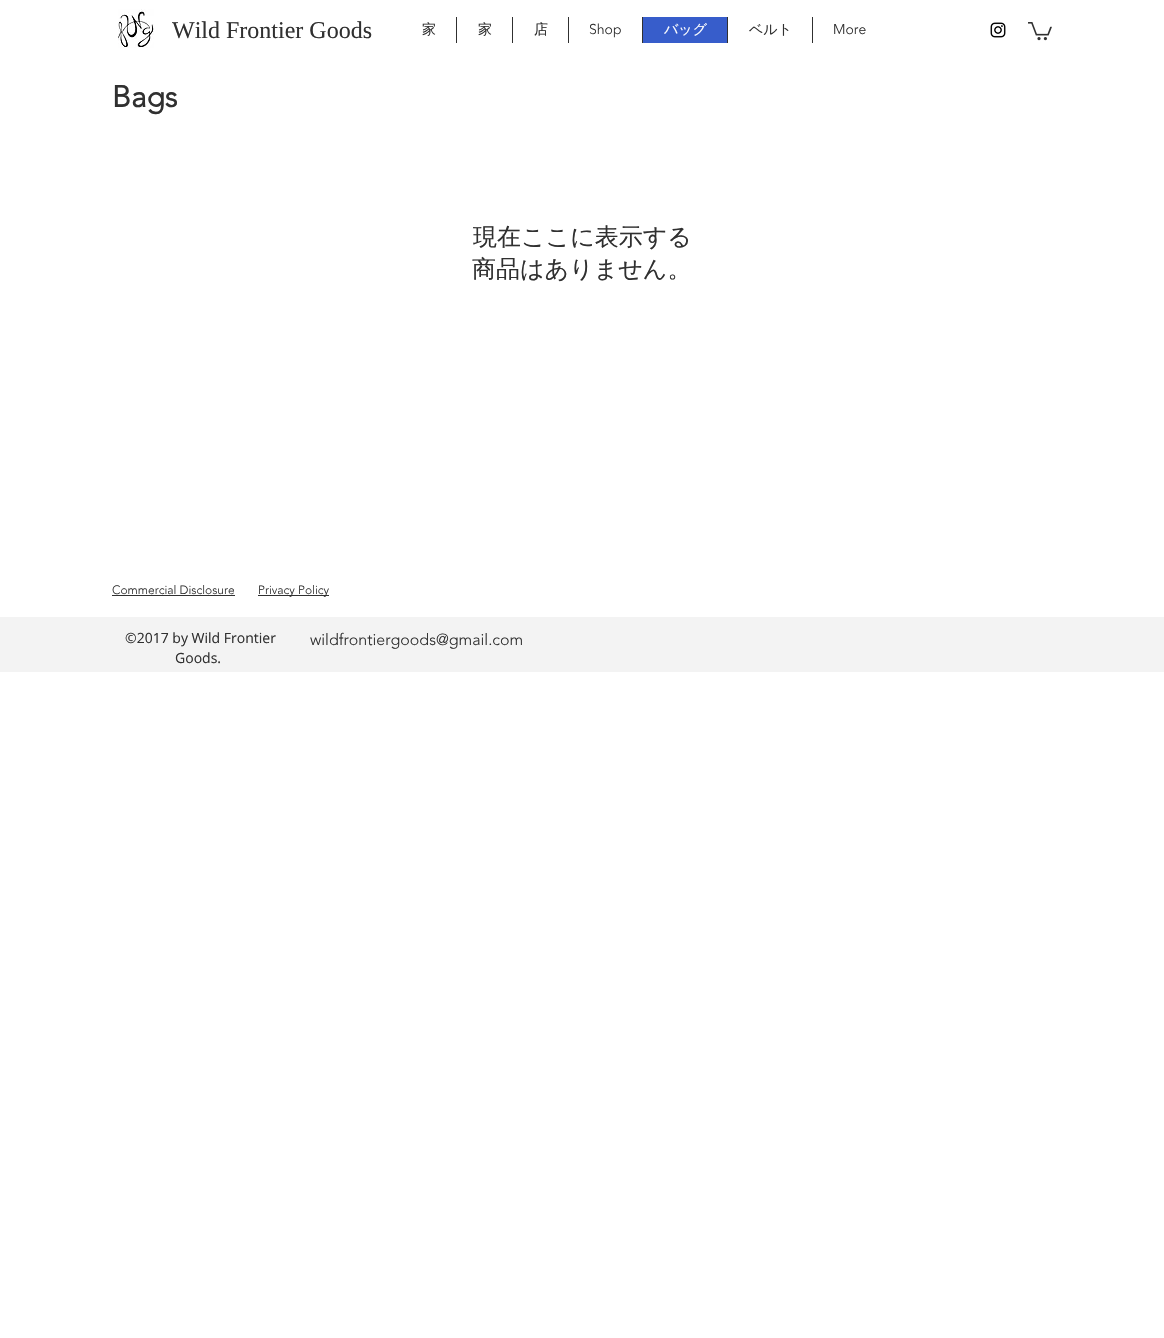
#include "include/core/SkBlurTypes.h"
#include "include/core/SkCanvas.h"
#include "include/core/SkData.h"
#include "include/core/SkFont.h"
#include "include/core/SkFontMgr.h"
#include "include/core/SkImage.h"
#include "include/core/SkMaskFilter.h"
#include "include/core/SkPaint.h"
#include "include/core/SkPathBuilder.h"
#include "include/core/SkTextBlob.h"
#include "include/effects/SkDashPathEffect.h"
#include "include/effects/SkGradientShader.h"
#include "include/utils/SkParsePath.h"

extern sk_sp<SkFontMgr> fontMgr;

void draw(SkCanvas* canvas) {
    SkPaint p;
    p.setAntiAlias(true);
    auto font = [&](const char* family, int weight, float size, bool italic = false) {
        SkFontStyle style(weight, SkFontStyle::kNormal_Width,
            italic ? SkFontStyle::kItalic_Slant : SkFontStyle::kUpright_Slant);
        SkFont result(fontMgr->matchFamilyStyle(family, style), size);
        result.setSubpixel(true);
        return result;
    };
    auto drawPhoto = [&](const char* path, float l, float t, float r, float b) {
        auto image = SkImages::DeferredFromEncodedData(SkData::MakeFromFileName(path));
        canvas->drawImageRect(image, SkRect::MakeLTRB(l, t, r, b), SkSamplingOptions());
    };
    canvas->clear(0xFFFFFFFF);
    drawPhoto("media/1.png", 118, 9, 154, 48);
    auto font1 = font("Liberation Serif", 400, 24);
    p.setColor(0xFF303030);
    canvas->drawString("Wild Frontier Goods", 172, 38, font1, p);
    auto font2 = font("WenQuanYi Zen Hei", 500, 14);
    canvas->drawString("家", 422, 34, font2, p);
    canvas->drawRect(SkRect::MakeLTRB(456, 17, 457, 43), p);
    canvas->drawString("家", 478, 34, font2, p);
    canvas->drawRect(SkRect::MakeLTRB(512, 17, 513, 43), p);
    canvas->drawString("店", 534, 34, font2, p);
    canvas->drawRect(SkRect::MakeLTRB(568, 17, 569, 43), p);
    auto font3 = font("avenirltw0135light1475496", 300, 14);
    canvas->drawString("Shop", 589, 34, font3, p);
    p.setColor(0xFF375DCB);
    canvas->drawRect(SkRect::MakeLTRB(643, 17, 727, 43), p);
    p.setColor(0xFF303030);
    canvas->drawRect(SkRect::MakeLTRB(642, 17, 643, 43), p);
    p.setColor(0xFFFFFFFF);
    canvas->drawString("バッグ", 664, 34, font2, p);
    p.setColor(0xFF303030);
    canvas->drawRect(SkRect::MakeLTRB(727, 17, 728, 43), p);
    canvas->drawString("ベルト", 749, 34, font2, p);
    canvas->drawRect(SkRect::MakeLTRB(812, 17, 813, 43), p);
    canvas->drawString("More", 833, 34, font3, p);
    drawPhoto("media/2.png", 990, 22, 1006, 38);
    drawPhoto("media/3.png", 1028, 22, 1052, 41);
    auto font4 = font("avenirltw0135light1475496", 700, 30);
    canvas->drawString("Bags", 112, 107, font4, p);
    auto font5 = font("WenQuanYi Zen Hei", 500, 24);
    canvas->drawString("現在ここに表示する", 473, 245, font5, p);
    canvas->drawString("商品はありません。", 472, 277, font5, p);
    auto font6 = font("avenirltw0135light1475496", 300, 12);
    canvas->drawString("Commercial Disclosure", 112, 594, font6, p);
    canvas->drawRect(SkRect::MakeLTRB(112, 595, 235, 596), p);
    canvas->drawRect(SkRect::MakeLTRB(258, 595, 329, 596), p);
    canvas->drawString("Privacy Policy", 258, 594, font6, p);
    p.setColor(0xFFF3F3F3);
    canvas->drawRect(SkRect::MakeLTRB(0, 617, 1164, 672), p);
    auto font7 = font("Open Sans", 400, 14);
    p.setColor(0xFF303030);
    canvas->drawString("©2017 by Wild Frontier", 125, 643, font7, p);
    canvas->drawString("Goods.", 175, 663, font7, p);
    auto font8 = font("avenirltw0135light1475496", 300, 16);
    canvas->drawString("wildfrontiergoods@gmail.com", 310, 645, font8, p);
}
